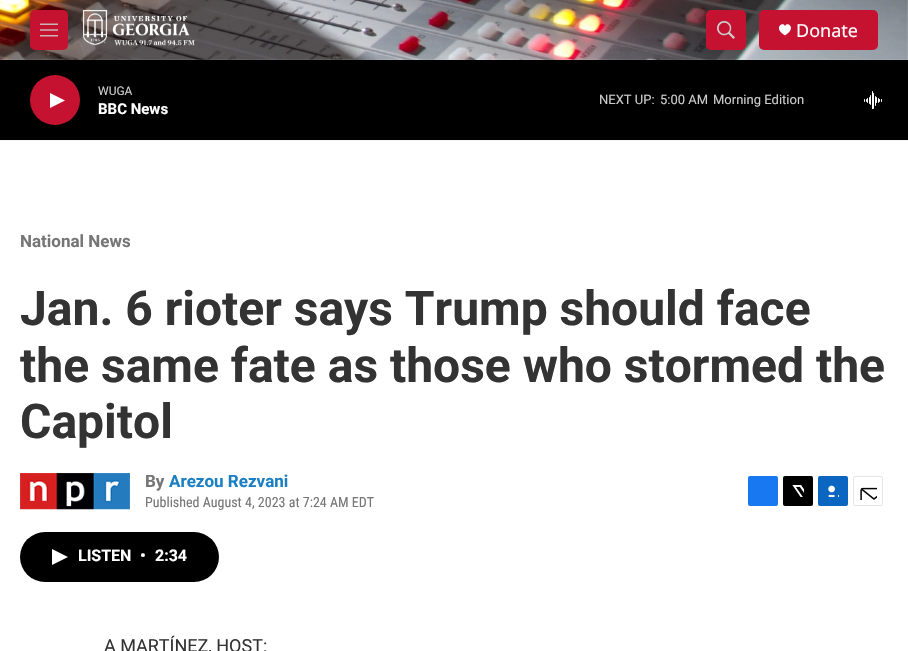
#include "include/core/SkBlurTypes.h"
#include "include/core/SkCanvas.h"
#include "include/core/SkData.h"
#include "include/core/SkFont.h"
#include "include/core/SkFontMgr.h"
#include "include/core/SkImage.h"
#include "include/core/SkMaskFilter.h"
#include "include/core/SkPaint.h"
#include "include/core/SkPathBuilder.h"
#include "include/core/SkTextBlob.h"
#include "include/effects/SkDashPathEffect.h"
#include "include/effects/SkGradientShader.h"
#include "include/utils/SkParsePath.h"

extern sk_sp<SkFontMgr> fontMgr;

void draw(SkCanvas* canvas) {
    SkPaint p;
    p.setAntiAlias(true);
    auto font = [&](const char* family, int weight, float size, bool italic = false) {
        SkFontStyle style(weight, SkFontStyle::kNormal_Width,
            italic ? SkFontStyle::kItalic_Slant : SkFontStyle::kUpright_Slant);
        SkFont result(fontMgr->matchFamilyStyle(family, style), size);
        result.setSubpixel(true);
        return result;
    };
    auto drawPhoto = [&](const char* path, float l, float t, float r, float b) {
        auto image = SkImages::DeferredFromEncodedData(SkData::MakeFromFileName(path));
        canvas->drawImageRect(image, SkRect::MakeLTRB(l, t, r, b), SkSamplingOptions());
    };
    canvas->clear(0xFFFFFFFF);
    p.setColor(0xFFF5F5F5);
    canvas->drawRect(SkRect::MakeLTRB(0, 140, 908, 141), p);
    drawPhoto("media/1.png", 0, 0, 908, 60);
    p.setColor(0xFFC41230);
    canvas->drawRoundRect(SkRect::MakeLTRB(30, 10, 68, 50), 5, 5, p);
    drawPhoto("media/2.png", 40, 23, 58, 37);
    drawPhoto("media/3.png", 83, 10, 195, 46);
    canvas->drawRoundRect(SkRect::MakeLTRB(706, 10, 746, 50), 5, 5, p);
    drawPhoto("media/4.png", 717, 21, 735, 39);
    canvas->drawRoundRect(SkRect::MakeLTRB(759, 10, 878, 50), 5, 5, p);
    p.setColor(0xFFFFFFFF);
    canvas->drawPath(SkPathBuilder().moveTo(785, 26).cubicTo(783, 21, 772.5f, 28, 785, 35.5f).cubicTo(797.5f, 28, 787, 21, 785, 26).close().detach(), p);
    auto font1 = font("Noto Sans", 400, 18);
    canvas->drawString("Donate", 796, 37, font1, p);
    p.setColor(0xFF000000);
    canvas->drawRect(SkRect::MakeLTRB(0, 60, 908, 140), p);
    p.setColor(0xFFC41230);
    canvas->drawCircle(55, 100, 25, p);
    p.setColor(0xFFFFFFFF);
    canvas->drawPath(SkPathBuilder().moveTo(50, 93).lineTo(65, 100.5f).lineTo(50, 108).close().detach(), p);
    auto font2 = font("Roboto", 400, 12);
    p.setColor(0xFFCCCCCC);
    canvas->drawString("WUGA", 98, 95, font2, p);
    auto font3 = font("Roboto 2", 700, 15);
    p.setColor(0xFFFFFFFF);
    canvas->drawString("BBC News", 98, 114, font3, p);
    auto font4 = font("Roboto", 400, 13);
    p.setColor(0xFFCCCCCC);
    {
        const struct { const char* s; float x, y; } items[] = {
            {"NEXT UP:", 599, 104},
            {"5:00 AM", 660, 104},
            {"Morning Edition", 713, 104},
        };
        for (auto [s, x, y] : items) {
            canvas->drawString(s, x, y, font4, p);
        }
    }
    drawPhoto("media/5.png", 864, 91, 882, 109);
    auto font5 = font("Roboto", 700, 17);
    p.setColor(0xFF767676);
    canvas->drawString("National News", 20, 247, font5, p);
    auto font6 = font("Roboto", 700, 48);
    p.setColor(0xFF333333);
    {
        const struct { const char* s; float x, y; } items[] = {
            {"Jan. 6 rioter says Trump should face", 20, 325},
            {"the same fate as those who stormed the", 20, 382},
            {"Capitol", 20, 438},
        };
        for (auto [s, x, y] : items) {
            canvas->drawString(s, x, y, font6, p);
        }
    }
    drawPhoto("media/6.png", 20, 473, 130, 510);
    p.setColor(0xFF767676);
    canvas->drawString("By", 145, 487, font5, p);
    p.setColor(0xFF1A7FC3);
    canvas->drawString("Arezou Rezvani", 169, 487, font5, p);
    auto font7 = font("Roboto Condensed", 400, 14);
    p.setColor(0xFF767676);
    canvas->drawString("Published August 4, 2023 at 7:24 AM EDT", 145, 507, font7, p);
    p.setColor(0xFF1778F2);
    canvas->drawRoundRect(SkRect::MakeLTRB(748, 476, 778, 506), 2, 2, p);
    p.setColor(0xFF000000);
    canvas->drawRoundRect(SkRect::MakeLTRB(783, 476, 813, 506), 2, 2, p);
    drawPhoto("media/7.png", 792, 485, 804, 497);
    p.setColor(0xFF0A66C1);
    canvas->drawRoundRect(SkRect::MakeLTRB(818, 476, 848, 506), 2, 2, p);
    drawPhoto("media/8.png", 828, 485, 839, 497);
    p.setStyle(SkPaint::kStroke_Style);
    p.setStrokeWidth(1);
    p.setColor(0xFFE6E6E6);
    canvas->drawRoundRect(SkRect::MakeLTRB(853.5f, 476.5f, 882.5f, 505.5f), 1.5f, 1.5f, p);
    drawPhoto("media/9.png", 860, 487, 877, 500);
    p.setStyle(SkPaint::kFill_Style);
    p.setColor(0xFF000000);
    canvas->drawRoundRect(SkRect::MakeLTRB(20, 532, 219, 582), 25, 25, p);
    p.setColor(0xFFFFFFFF);
    canvas->drawPath(SkPathBuilder().moveTo(52, 549).lineTo(68, 557).lineTo(52, 565).close().detach(), p);
    auto font8 = font("Roboto 2", 700, 16);
    {
        const struct { const char* s; float x, y; } items[] = {
            {"LISTEN", 78, 561},
            {"•", 140, 561},
            {"2:34", 155, 561},
        };
        for (auto [s, x, y] : items) {
            canvas->drawString(s, x, y, font8, p);
        }
    }
    auto font9 = font("Roboto", 400, 18);
    p.setColor(0xFF333333);
    canvas->drawString("A MARTÍNEZ, HOST:", 104, 652, font9, p);
}
